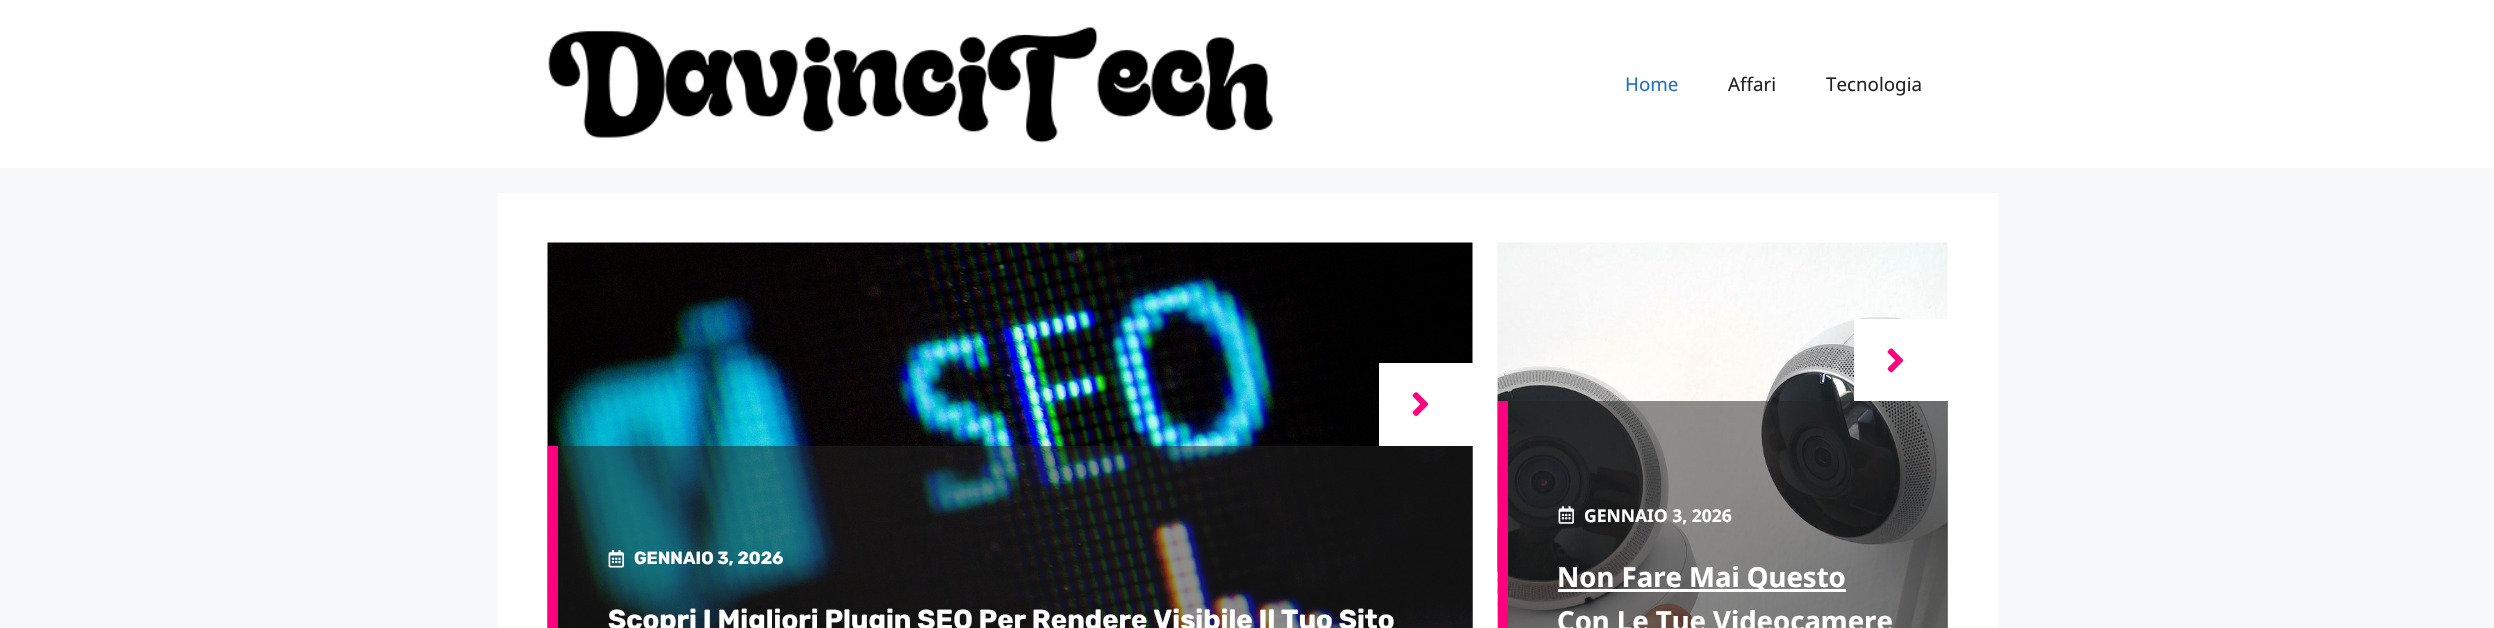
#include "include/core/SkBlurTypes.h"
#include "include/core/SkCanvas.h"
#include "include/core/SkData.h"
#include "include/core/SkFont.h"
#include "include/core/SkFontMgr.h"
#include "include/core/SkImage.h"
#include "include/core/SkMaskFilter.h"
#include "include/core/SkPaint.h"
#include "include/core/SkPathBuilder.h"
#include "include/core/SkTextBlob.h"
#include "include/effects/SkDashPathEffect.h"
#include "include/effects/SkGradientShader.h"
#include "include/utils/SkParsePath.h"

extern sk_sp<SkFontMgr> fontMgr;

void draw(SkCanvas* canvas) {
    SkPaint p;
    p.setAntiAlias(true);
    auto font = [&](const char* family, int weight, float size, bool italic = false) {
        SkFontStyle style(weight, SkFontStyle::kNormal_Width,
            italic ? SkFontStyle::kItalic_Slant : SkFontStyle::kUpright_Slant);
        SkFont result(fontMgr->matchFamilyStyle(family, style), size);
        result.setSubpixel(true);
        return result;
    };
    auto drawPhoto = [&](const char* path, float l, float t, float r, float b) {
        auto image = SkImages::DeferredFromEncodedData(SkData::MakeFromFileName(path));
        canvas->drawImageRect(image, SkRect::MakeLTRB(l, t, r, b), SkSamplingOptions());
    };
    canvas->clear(0xFFF7F8F9);
    p.setColor(0xFFFFFFFF);
    canvas->drawRect(SkRect::MakeLTRB(0, 0, 2494, 168), p);
    drawPhoto("media/1.png", 548, 27, 1273, 143);
    auto font1 = font("Noto Sans", 400, 18.75f);
    p.setColor(0xFF1E73BE);
    canvas->drawString("Home", 1625, 91, font1, p);
    p.setColor(0xFF222222);
    canvas->drawString("Affari", 1728, 91, font1, p);
    canvas->drawString("Tecnologia", 1826, 91, font1, p);
    p.setColor(0xFFFFFFFF);
    canvas->drawRect(SkRect::MakeLTRB(498, 193, 1998, 628), p);
    drawPhoto("media/2.png", 547, 242, 1473, 628);
    canvas->drawRect(SkRect::MakeLTRB(1379, 363, 1473, 446), p);
    drawPhoto("media/3.png", 1412, 392, 1429, 417);
    p.setColor(0x82212121);
    canvas->drawRect(SkRect::MakeLTRB(558, 446, 1473, 628), p);
    p.setColor(0xFFFF007E);
    canvas->drawRect(SkRect::MakeLTRB(548, 446, 558, 628), p);
    drawPhoto("media/4.png", 608, 550, 624, 568);
    auto font2 = font("Rubik", 700, 17.5f);
    p.setColor(0xFFFFFFFF);
    canvas->drawString("GENNAIO 3, 2026", 634, 564, font2, p);
    auto font3 = font("Rubik", 700, 27.5f);
    canvas->drawString("Scopri I Migliori Plugin SEO Per Rendere Visibile Il Tuo Sito", 608, 629, font3, p);
    drawPhoto("media/5.png", 1497, 242, 1948, 628);
    canvas->drawRect(SkRect::MakeLTRB(1854, 319, 1948, 401), p);
    drawPhoto("media/6.png", 1887, 348, 1904, 373);
    p.setColor(0x82212121);
    canvas->drawRect(SkRect::MakeLTRB(1508, 401, 1948, 628), p);
    p.setColor(0xFFFF007E);
    canvas->drawRect(SkRect::MakeLTRB(1498, 401, 1508, 628), p);
    drawPhoto("media/7.png", 1558, 506, 1574, 524);
    auto font4 = font("Noto Sans", 700, 17.5f);
    p.setColor(0xFFFFFFFF);
    canvas->drawString("GENNAIO 3, 2026", 1584, 522, font4, p);
    canvas->drawRect(SkRect::MakeLTRB(1558, 589, 1846, 592), p);
    auto font5 = font("Noto Sans", 700, 27.5f);
    canvas->drawString("Non Fare Mai Questo", 1557, 587, font5, p);
    canvas->drawString("Con Le Tue Videocamere", 1557, 631, font5, p);
}
